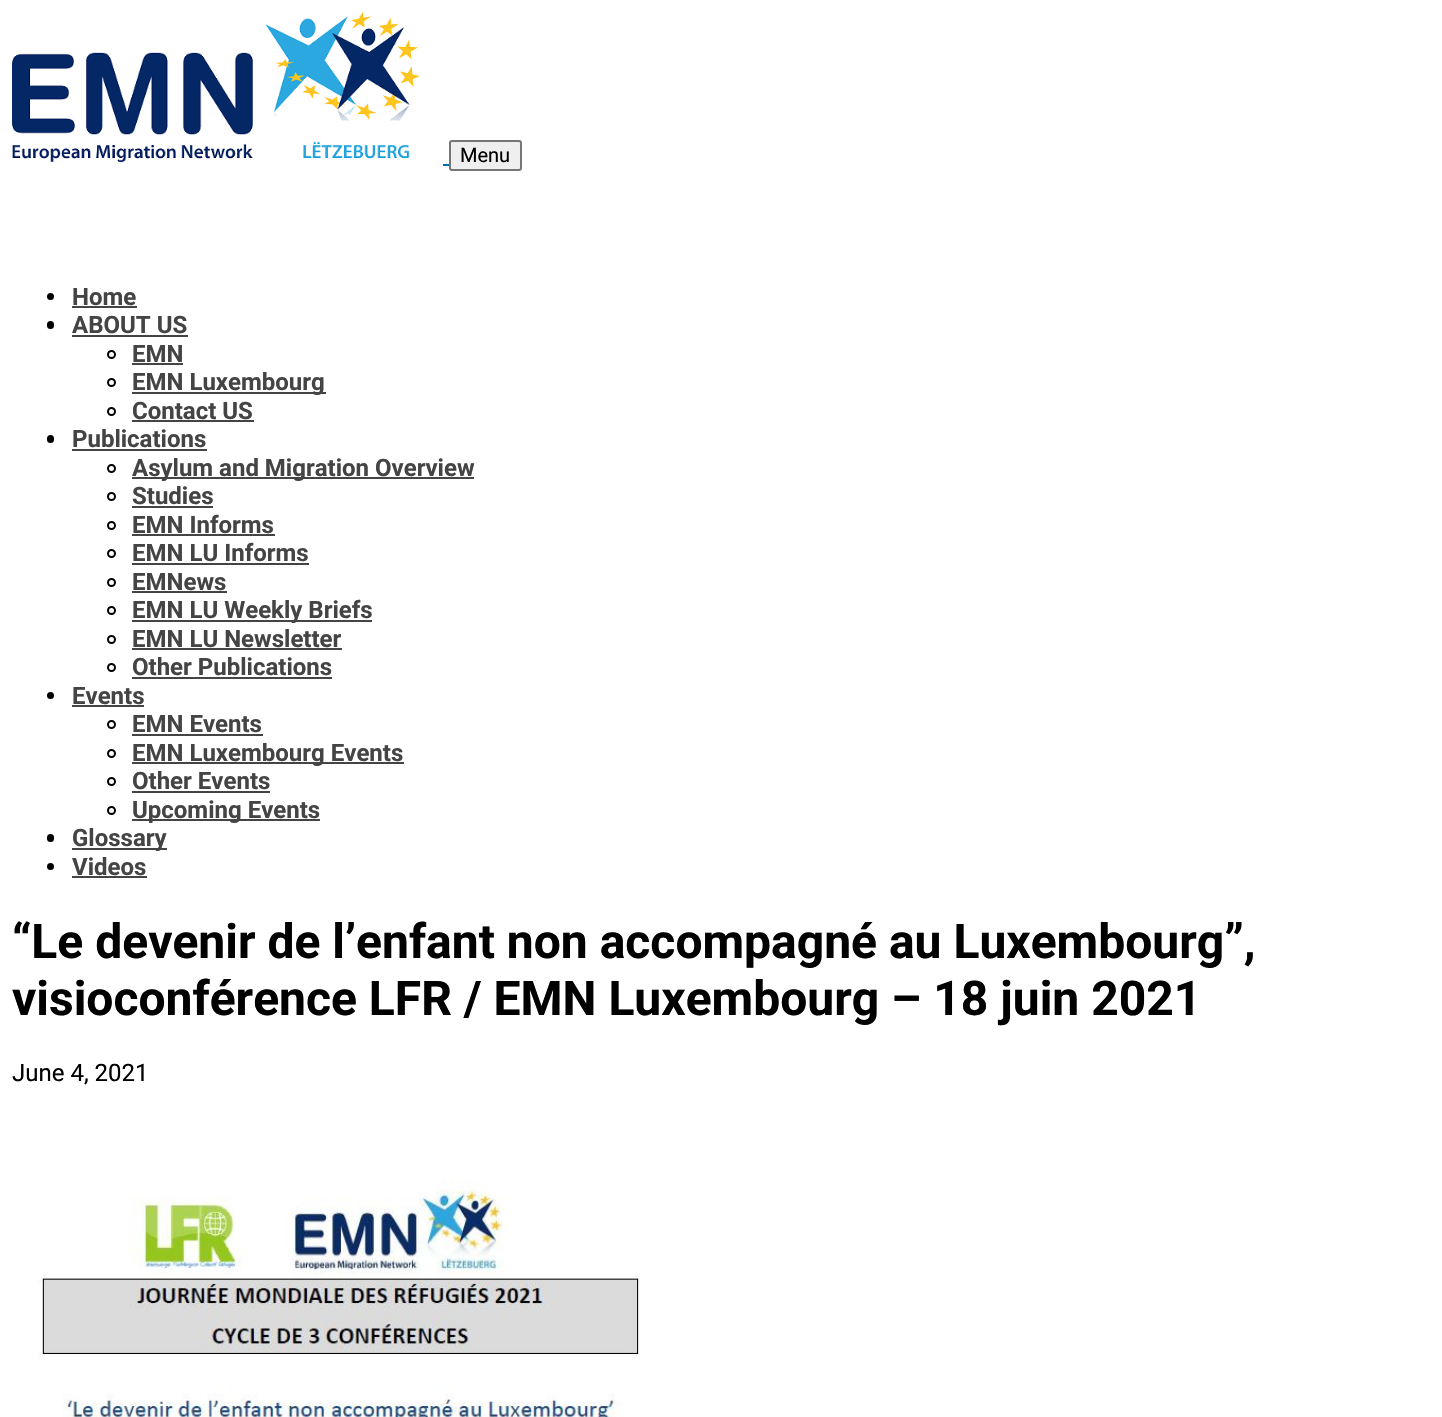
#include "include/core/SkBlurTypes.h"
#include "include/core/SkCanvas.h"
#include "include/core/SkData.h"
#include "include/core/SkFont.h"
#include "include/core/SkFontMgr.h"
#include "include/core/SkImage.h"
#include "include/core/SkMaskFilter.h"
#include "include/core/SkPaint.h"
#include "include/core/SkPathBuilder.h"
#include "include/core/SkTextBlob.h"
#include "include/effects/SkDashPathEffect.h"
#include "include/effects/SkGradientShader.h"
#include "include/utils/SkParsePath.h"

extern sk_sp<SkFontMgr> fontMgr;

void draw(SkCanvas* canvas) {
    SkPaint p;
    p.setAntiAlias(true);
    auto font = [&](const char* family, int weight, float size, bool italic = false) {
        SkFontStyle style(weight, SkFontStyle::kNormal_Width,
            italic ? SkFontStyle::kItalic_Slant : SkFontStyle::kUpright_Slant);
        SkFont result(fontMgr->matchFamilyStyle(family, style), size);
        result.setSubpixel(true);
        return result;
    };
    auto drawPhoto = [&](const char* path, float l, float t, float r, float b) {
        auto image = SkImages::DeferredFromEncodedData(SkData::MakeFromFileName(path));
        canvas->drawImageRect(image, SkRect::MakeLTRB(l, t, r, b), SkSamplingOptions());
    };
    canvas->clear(0xFFFFFFFF);
    drawPhoto("media/1.png", 12, 12, 420, 162);
    p.setColor(0xFFEFEFEF);
    canvas->drawRoundRect(SkRect::MakeLTRB(450, 141, 521, 170), 2, 2, p);
    p.setStyle(SkPaint::kStroke_Style);
    p.setStrokeWidth(2);
    p.setColor(0xFF767676);
    canvas->drawRoundRect(SkRect::MakeLTRB(450, 141, 521, 170), 2, 2, p);
    auto font1 = font("Roboto", 400, 20);
    p.setStyle(SkPaint::kFill_Style);
    p.setColor(0xFF000000);
    canvas->drawString("Menu", 460, 162, font1, p);
    p.setColor(0xFF006FB4);
    canvas->drawRect(SkRect::MakeLTRB(443, 164, 449, 166), p);
    p.setColor(0xFF000000);
    canvas->drawCircle(50.5f, 296.5f, 3.5f, p);
    auto font2 = font("Roboto", 700, 24);
    p.setColor(0xFF444444);
    canvas->drawString("Home", 72, 305, font2, p);
    canvas->drawRect(SkRect::MakeLTRB(72, 306, 137, 308), p);
    p.setColor(0xFF000000);
    canvas->drawRoundRect(SkRect::MakeLTRB(47, 321, 54, 329), 3.5f, 3.5f, p);
    p.setColor(0xFF444444);
    canvas->drawString("ABOUT US", 72, 333, font2, p);
    canvas->drawRect(SkRect::MakeLTRB(72, 335, 188, 337), p);
    p.setStyle(SkPaint::kStroke_Style);
    p.setColor(0xFF000000);
    canvas->drawCircle(111.5f, 354.5f, 3.5f, p);
    p.setStyle(SkPaint::kFill_Style);
    p.setColor(0xFF444444);
    canvas->drawString("EMN", 132, 362, font2, p);
    canvas->drawRect(SkRect::MakeLTRB(132, 363, 183, 365), p);
    p.setStyle(SkPaint::kStroke_Style);
    p.setColor(0xFF000000);
    canvas->drawCircle(111.5f, 382.5f, 3.5f, p);
    p.setStyle(SkPaint::kFill_Style);
    p.setColor(0xFF444444);
    canvas->drawRect(SkRect::MakeLTRB(132, 392, 326, 394), p);
    canvas->drawString("EMN Luxembourg", 132, 390, font2, p);
    p.setStyle(SkPaint::kStroke_Style);
    p.setColor(0xFF000000);
    canvas->drawCircle(111.5f, 411.5f, 3.5f, p);
    p.setStyle(SkPaint::kFill_Style);
    p.setColor(0xFF444444);
    canvas->drawString("Contact US", 132, 419, font2, p);
    canvas->drawRect(SkRect::MakeLTRB(132, 420, 254, 422), p);
    p.setColor(0xFF000000);
    canvas->drawRoundRect(SkRect::MakeLTRB(47, 435, 54, 443), 3.5f, 3.5f, p);
    p.setColor(0xFF444444);
    canvas->drawString("Publications", 72, 447, font2, p);
    canvas->drawRect(SkRect::MakeLTRB(72, 449, 207, 451), p);
    p.setStyle(SkPaint::kStroke_Style);
    p.setColor(0xFF000000);
    canvas->drawCircle(111.5f, 468.5f, 3.5f, p);
    p.setStyle(SkPaint::kFill_Style);
    p.setColor(0xFF444444);
    canvas->drawRect(SkRect::MakeLTRB(132, 477, 474, 479), p);
    canvas->drawString("Asylum and Migration Overview", 132, 476, font2, p);
    p.setStyle(SkPaint::kStroke_Style);
    p.setColor(0xFF000000);
    canvas->drawCircle(111.5f, 496.5f, 3.5f, p);
    p.setStyle(SkPaint::kFill_Style);
    p.setColor(0xFF444444);
    canvas->drawString("Studies", 132, 504, font2, p);
    canvas->drawRect(SkRect::MakeLTRB(132, 506, 213, 508), p);
    p.setStyle(SkPaint::kStroke_Style);
    p.setColor(0xFF000000);
    canvas->drawCircle(111.5f, 525.5f, 3.5f, p);
    p.setStyle(SkPaint::kFill_Style);
    p.setColor(0xFF444444);
    canvas->drawString("EMN Informs", 132, 533, font2, p);
    canvas->drawRect(SkRect::MakeLTRB(132, 534, 275, 536), p);
    p.setStyle(SkPaint::kStroke_Style);
    p.setColor(0xFF000000);
    canvas->drawCircle(111.5f, 553.5f, 3.5f, p);
    p.setStyle(SkPaint::kFill_Style);
    p.setColor(0xFF444444);
    canvas->drawString("EMN LU Informs", 132, 561, font2, p);
    canvas->drawRect(SkRect::MakeLTRB(132, 563, 309, 565), p);
    p.setStyle(SkPaint::kStroke_Style);
    p.setColor(0xFF000000);
    canvas->drawCircle(111.5f, 582.5f, 3.5f, p);
    p.setStyle(SkPaint::kFill_Style);
    p.setColor(0xFF444444);
    canvas->drawString("EMNews", 132, 590, font2, p);
    canvas->drawRect(SkRect::MakeLTRB(132, 591, 227, 593), p);
    p.setStyle(SkPaint::kStroke_Style);
    p.setColor(0xFF000000);
    canvas->drawCircle(111.5f, 610.5f, 3.5f, p);
    p.setStyle(SkPaint::kFill_Style);
    p.setColor(0xFF444444);
    canvas->drawRect(SkRect::MakeLTRB(132, 620, 372, 622), p);
    canvas->drawString("EMN LU Weekly Briefs", 132, 618, font2, p);
    p.setStyle(SkPaint::kStroke_Style);
    p.setColor(0xFF000000);
    canvas->drawCircle(111.5f, 639.5f, 3.5f, p);
    p.setStyle(SkPaint::kFill_Style);
    p.setColor(0xFF444444);
    canvas->drawString("EMN LU Newsletter", 132, 647, font2, p);
    canvas->drawRect(SkRect::MakeLTRB(132, 648, 342, 650), p);
    p.setStyle(SkPaint::kStroke_Style);
    p.setColor(0xFF000000);
    canvas->drawCircle(111.5f, 667.5f, 3.5f, p);
    p.setStyle(SkPaint::kFill_Style);
    p.setColor(0xFF444444);
    canvas->drawString("Other Publications", 132, 675, font2, p);
    canvas->drawRect(SkRect::MakeLTRB(132, 677, 332, 679), p);
    p.setColor(0xFF000000);
    canvas->drawCircle(50.5f, 695.5f, 3.5f, p);
    p.setColor(0xFF444444);
    canvas->drawString("Events", 72, 704, font2, p);
    canvas->drawRect(SkRect::MakeLTRB(72, 705, 144, 707), p);
    p.setStyle(SkPaint::kStroke_Style);
    p.setColor(0xFF000000);
    canvas->drawCircle(111.5f, 724.5f, 3.5f, p);
    p.setStyle(SkPaint::kFill_Style);
    p.setColor(0xFF444444);
    canvas->drawString("EMN Events", 132, 732, font2, p);
    canvas->drawRect(SkRect::MakeLTRB(132, 734, 263, 736), p);
    p.setStyle(SkPaint::kStroke_Style);
    p.setColor(0xFF000000);
    canvas->drawCircle(111.5f, 753.5f, 3.5f, p);
    p.setStyle(SkPaint::kFill_Style);
    p.setColor(0xFF444444);
    canvas->drawRect(SkRect::MakeLTRB(132, 762, 404, 764), p);
    canvas->drawString("EMN Luxembourg Events", 132, 761, font2, p);
    p.setStyle(SkPaint::kStroke_Style);
    p.setColor(0xFF000000);
    canvas->drawCircle(111.5f, 781.5f, 3.5f, p);
    p.setStyle(SkPaint::kFill_Style);
    p.setColor(0xFF444444);
    canvas->drawString("Other Events", 132, 789, font2, p);
    canvas->drawRect(SkRect::MakeLTRB(132, 791, 270, 793), p);
    p.setStyle(SkPaint::kStroke_Style);
    p.setColor(0xFF000000);
    canvas->drawCircle(111.5f, 810.5f, 3.5f, p);
    p.setStyle(SkPaint::kFill_Style);
    p.setColor(0xFF444444);
    canvas->drawRect(SkRect::MakeLTRB(132, 819, 320, 821), p);
    canvas->drawString("Upcoming Events", 132, 818, font2, p);
    p.setColor(0xFF000000);
    canvas->drawRoundRect(SkRect::MakeLTRB(47, 834, 54, 842), 3.5f, 3.5f, p);
    p.setColor(0xFF444444);
    canvas->drawRect(SkRect::MakeLTRB(72, 848, 167, 850), p);
    canvas->drawString("Glossary", 72, 846, font2, p);
    p.setColor(0xFF000000);
    canvas->drawCircle(50.5f, 866.5f, 3.5f, p);
    p.setColor(0xFF444444);
    canvas->drawString("Videos", 72, 875, font2, p);
    canvas->drawRect(SkRect::MakeLTRB(72, 876, 147, 878), p);
    auto font3 = font("Roboto", 700, 48);
    p.setColor(0xFF000000);
    canvas->drawString("“Le devenir de l’enfant non accompagné au Luxembourg”,", 12, 958, font3, p);
    canvas->drawString("visioconférence LFR / EMN Luxembourg – 18 juin 2021", 12, 1015, font3, p);
    auto font4 = font("Roboto", 400, 24);
    canvas->drawString("June 4, 2021", 12, 1081, font4, p);
    drawPhoto("media/2.png", 37, 1181, 640, 1417);
}
